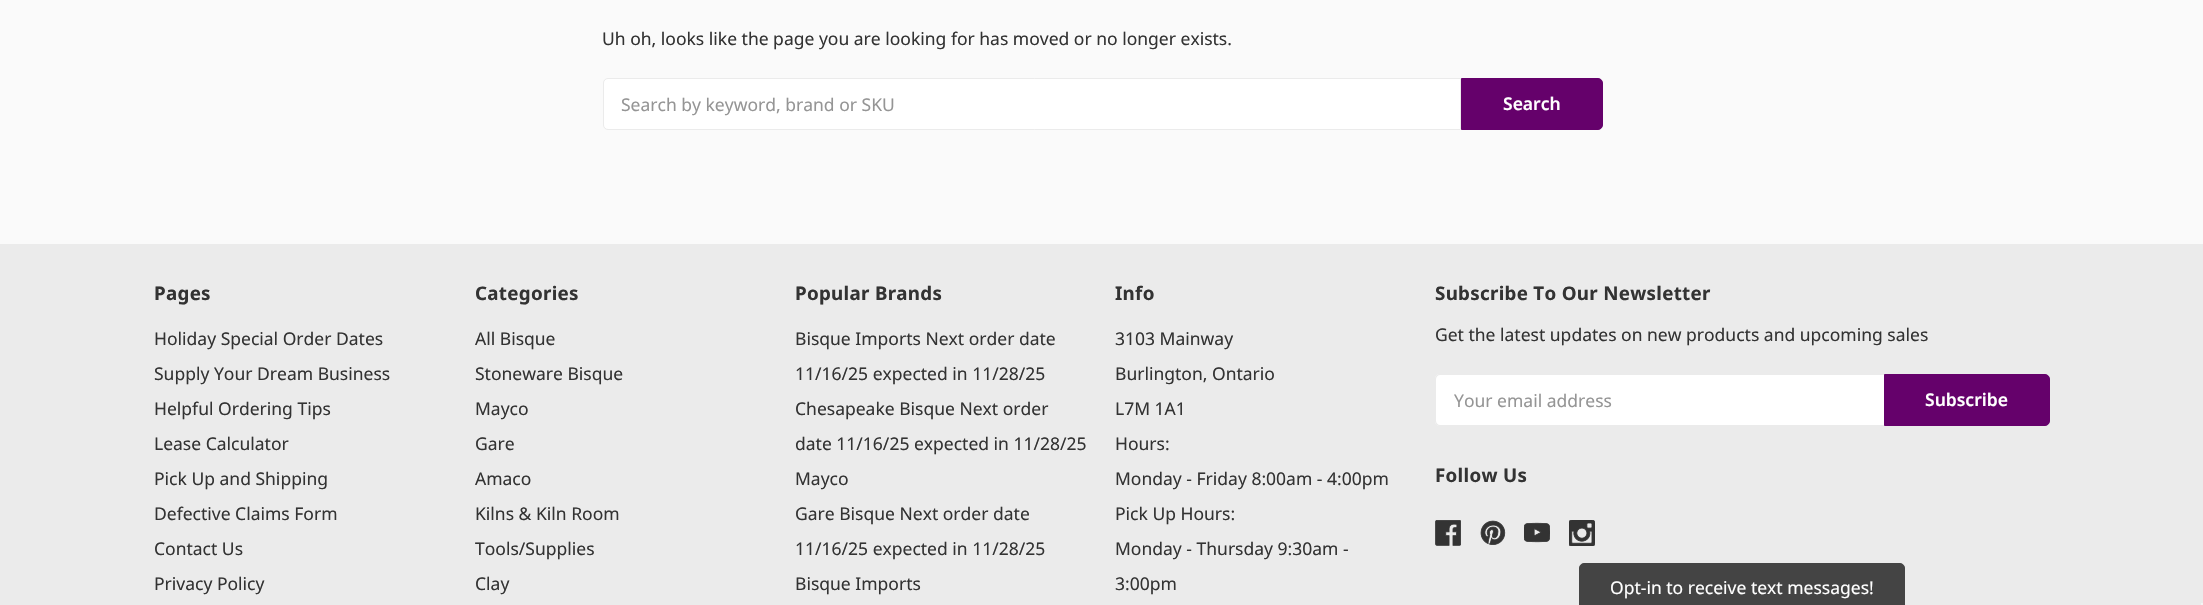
#include "include/core/SkBlurTypes.h"
#include "include/core/SkCanvas.h"
#include "include/core/SkData.h"
#include "include/core/SkFont.h"
#include "include/core/SkFontMgr.h"
#include "include/core/SkImage.h"
#include "include/core/SkMaskFilter.h"
#include "include/core/SkPaint.h"
#include "include/core/SkPathBuilder.h"
#include "include/core/SkTextBlob.h"
#include "include/effects/SkDashPathEffect.h"
#include "include/effects/SkGradientShader.h"
#include "include/utils/SkParsePath.h"

extern sk_sp<SkFontMgr> fontMgr;

void draw(SkCanvas* canvas) {
    SkPaint p;
    p.setAntiAlias(true);
    auto font = [&](const char* family, int weight, float size, bool italic = false) {
        SkFontStyle style(weight, SkFontStyle::kNormal_Width,
            italic ? SkFontStyle::kItalic_Slant : SkFontStyle::kUpright_Slant);
        SkFont result(fontMgr->matchFamilyStyle(family, style), size);
        result.setSubpixel(true);
        return result;
    };
    auto drawTracked = [&](const char* s, float x, float y, const SkFont& font, const SkPaint& ink, float letter, float word) {
        std::vector<SkGlyphID> glyphs(font.countText(s, strlen(s), SkTextEncoding::kUTF8));
        std::vector<float> xs(glyphs.size());
        font.textToGlyphs(s, strlen(s), SkTextEncoding::kUTF8, glyphs);
        font.getXPos(glyphs, xs, x);
        float extra = 0;
        for (size_t i = 0; i < glyphs.size(); i++) {
            xs[i] += extra;
            extra += letter + word * (glyphs[i] == font.unicharToGlyph(' '));
        }
        canvas->drawTextBlob(SkTextBlob::MakeFromPosHGlyphs(glyphs, xs, y, font), 0, 0, ink);
    };
    auto drawPhoto = [&](const char* path, float l, float t, float r, float b) {
        auto image = SkImages::DeferredFromEncodedData(SkData::MakeFromFileName(path));
        canvas->drawImageRect(image, SkRect::MakeLTRB(l, t, r, b), SkSamplingOptions());
    };
    canvas->clear(0xFFFAFAFA);
    auto font1 = font("Noto Sans", 400, 17.5f);
    p.setColor(0xFF333333);
    canvas->drawString("Uh oh, looks like the page you are looking for has moved or no longer exists.", 602, 45, font1, p);
    p.setColor(0xFFFFFFFF);
    canvas->drawPath(SkPathBuilder().moveTo(608, 78.5f).lineTo(1460.5f, 78.5f).lineTo(1460.5f, 129.5f).lineTo(608, 129.5f).cubicTo(605.5f, 129.5f, 603.5f, 127.5f, 603.5f, 125).lineTo(603.5f, 83).cubicTo(603.5f, 80.5f, 605.5f, 78.5f, 608, 78.5f).close().detach(), p);
    p.setStyle(SkPaint::kStroke_Style);
    p.setStrokeWidth(1);
    p.setColor(0xFFEBEBEB);
    canvas->drawPath(SkPathBuilder().moveTo(608, 78.5f).lineTo(1460.5f, 78.5f).lineTo(1460.5f, 129.5f).lineTo(608, 129.5f).cubicTo(605.5f, 129.5f, 603.5f, 127.5f, 603.5f, 125).lineTo(603.5f, 83).cubicTo(603.5f, 80.5f, 605.5f, 78.5f, 608, 78.5f).close().detach(), p);
    p.setStyle(SkPaint::kFill_Style);
    p.setColor(0xFF959595);
    canvas->drawString("Search by keyword, brand or SKU", 621, 111, font1, p);
    p.setColor(0xFF65016B);
    canvas->drawPath(SkPathBuilder().moveTo(1461.5f, 78.5f).lineTo(1598, 78.5f).cubicTo(1600.5f, 78.5f, 1602.5f, 80.5f, 1602.5f, 83).lineTo(1602.5f, 125).cubicTo(1602.5f, 127.5f, 1600.5f, 129.5f, 1598, 129.5f).lineTo(1461.5f, 129.5f).close().detach(), p);
    p.setStyle(SkPaint::kStroke_Style);
    canvas->drawPath(SkPathBuilder().moveTo(1461.5f, 78.5f).lineTo(1598, 78.5f).cubicTo(1600.5f, 78.5f, 1602.5f, 80.5f, 1602.5f, 83).lineTo(1602.5f, 125).cubicTo(1602.5f, 127.5f, 1600.5f, 129.5f, 1598, 129.5f).lineTo(1461.5f, 129.5f).close().detach(), p);
    auto font2 = font("Noto Sans", 600, 17.5f);
    p.setStyle(SkPaint::kFill_Style);
    p.setColor(0xFFFFFFFF);
    canvas->drawString("Search", 1503, 110, font2, p);
    p.setColor(0xFFEBEBEB);
    canvas->drawRect(SkRect::MakeLTRB(0, 244, 2203, 605), p);
    auto font3 = font("Noto Sans", 700, 18.75f);
    p.setColor(0xFF333333);
    drawTracked("Pages", 154, 300, font3, p, 0.3f, 0);
    {
        const struct { const char* s; float x, y; } items[] = {
            {"Holiday Special Order Dates", 154, 345},
            {"Supply Your Dream Business", 154, 380},
            {"Helpful Ordering Tips", 154, 415},
            {"Lease Calculator", 154, 450},
            {"Pick Up and Shipping", 154, 485},
            {"Defective Claims Form", 154, 520},
            {"Contact Us", 154, 555},
            {"Privacy Policy", 154, 590},
        };
        for (auto [s, x, y] : items) {
            canvas->drawString(s, x, y, font1, p);
        }
    }
    drawTracked("Categories", 475, 300, font3, p, 0.3f, 0);
    {
        const struct { const char* s; float x, y; } items[] = {
            {"All Bisque", 475, 345},
            {"Stoneware Bisque", 475, 380},
            {"Mayco", 475, 415},
            {"Gare", 475, 450},
            {"Amaco", 475, 485},
            {"Kilns & Kiln Room", 475, 520},
            {"Tools/Supplies", 475, 555},
            {"Clay", 475, 590},
        };
        for (auto [s, x, y] : items) {
            canvas->drawString(s, x, y, font1, p);
        }
    }
    drawTracked("Popular Brands", 795, 300, font3, p, 0.3f, 0);
    {
        const struct { const char* s; float x, y; } items[] = {
            {"Bisque Imports Next order date", 795, 345},
            {"11/16/25 expected in 11/28/25", 795, 380},
            {"Chesapeake Bisque Next order", 795, 415},
            {"date 11/16/25 expected in 11/28/25", 795, 450},
            {"Mayco", 795, 485},
            {"Gare Bisque Next order date", 795, 520},
            {"11/16/25 expected in 11/28/25", 795, 555},
            {"Bisque Imports", 795, 590},
        };
        for (auto [s, x, y] : items) {
            canvas->drawString(s, x, y, font1, p);
        }
    }
    drawTracked("Info", 1115, 300, font3, p, 0.3f, 0);
    {
        const struct { const char* s; float x, y; } items[] = {
            {"3103 Mainway", 1115, 345},
            {"Burlington, Ontario", 1115, 380},
            {"L7M 1A1", 1115, 415},
            {"Hours:", 1115, 450},
            {"Monday - Friday 8:00am - 4:00pm", 1115, 485},
            {"Pick Up Hours:", 1115, 520},
            {"Monday - Thursday 9:30am -", 1115, 555},
            {"3:00pm", 1115, 590},
        };
        for (auto [s, x, y] : items) {
            canvas->drawString(s, x, y, font1, p);
        }
    }
    drawTracked("Subscribe To Our Newsletter", 1435, 300, font3, p, 0.3f, 0);
    canvas->drawString("Get the latest updates on new products and upcoming sales", 1435, 341, font1, p);
    p.setColor(0xFFFFFFFF);
    canvas->drawPath(SkPathBuilder().moveTo(1440, 374).lineTo(1884, 374).lineTo(1884, 426).lineTo(1440, 426).cubicTo(1437, 426, 1435, 424, 1435, 421).lineTo(1435, 379).cubicTo(1435, 376, 1437, 374, 1440, 374).close().detach(), p);
    p.setColor(0xFFEBEBEB);
    canvas->drawPath(SkPathBuilder(SkPathFillType::kEvenOdd).moveTo(1440, 374).lineTo(1884, 374).lineTo(1884, 426).lineTo(1440, 426).cubicTo(1437, 426, 1435, 424, 1435, 421).lineTo(1435, 379).cubicTo(1435, 376, 1437, 374, 1440, 374).close().moveTo(1440, 375).lineTo(1884, 375).lineTo(1884, 425).lineTo(1440, 425).cubicTo(1438, 425, 1436, 423, 1436, 421).lineTo(1436, 379).cubicTo(1436, 377, 1438, 375, 1440, 375).close().detach(), p);
    p.setColor(0xFF959595);
    canvas->drawString("Your email address", 1454, 407, font1, p);
    p.setColor(0xFF65016B);
    canvas->drawPath(SkPathBuilder().moveTo(1884.5f, 374.5f).lineTo(2045, 374.5f).cubicTo(2047.5f, 374.5f, 2049.5f, 376.5f, 2049.5f, 379).lineTo(2049.5f, 421).cubicTo(2049.5f, 423.5f, 2047.5f, 425.5f, 2045, 425.5f).lineTo(1884.5f, 425.5f).close().detach(), p);
    p.setStyle(SkPaint::kStroke_Style);
    canvas->drawPath(SkPathBuilder().moveTo(1884.5f, 374.5f).lineTo(2045, 374.5f).cubicTo(2047.5f, 374.5f, 2049.5f, 376.5f, 2049.5f, 379).lineTo(2049.5f, 421).cubicTo(2049.5f, 423.5f, 2047.5f, 425.5f, 2045, 425.5f).lineTo(1884.5f, 425.5f).close().detach(), p);
    p.setStyle(SkPaint::kFill_Style);
    p.setColor(0xFFFFFFFF);
    canvas->drawString("Subscribe", 1925, 406, font2, p);
    p.setColor(0xFF333333);
    drawTracked("Follow Us", 1435, 482, font3, p, 0.3f, 0);
    drawPhoto("media/1.png", 1435, 520, 1461, 546);
    drawPhoto("media/2.png", 1480, 520, 1506, 545);
    drawPhoto("media/3.png", 1524, 522, 1550, 543);
    drawPhoto("media/4.png", 1569, 520, 1595, 546);
    p.setColor(0xFF444444);
    canvas->drawRoundRect(SkRect::MakeLTRB(1579.5f, 563.5f, 1904.5f, 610.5f), 4.5f, 4.5f, p);
    p.setStyle(SkPaint::kStroke_Style);
    canvas->drawRoundRect(SkRect::MakeLTRB(1579.5f, 563.5f, 1904.5f, 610.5f), 4.5f, 4.5f, p);
    p.setStyle(SkPaint::kFill_Style);
    p.setColor(0xFFFFFFFF);
    canvas->drawString("Opt-in to receive text messages!", 1610, 594, font1, p);
    p.setColor(0xFFF5F5F5);
    canvas->drawRect(SkRect::MakeLTRB(2201, 603, 2203, 605), p);
}
